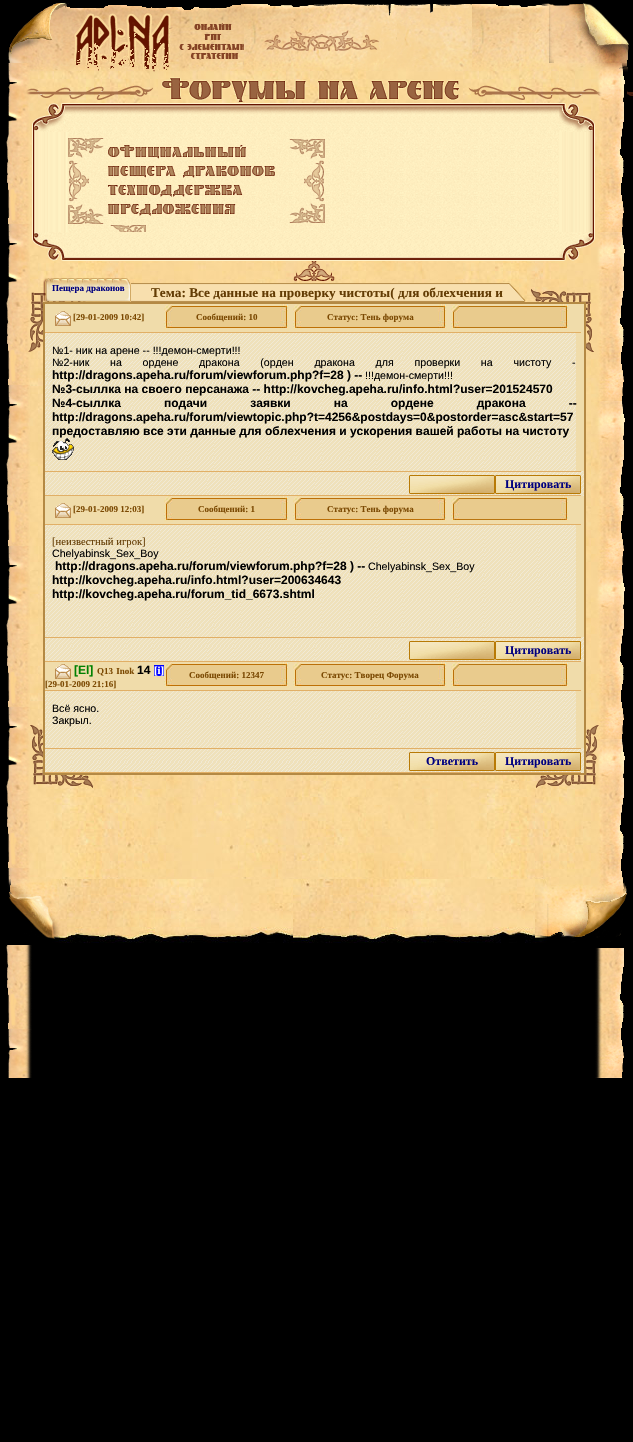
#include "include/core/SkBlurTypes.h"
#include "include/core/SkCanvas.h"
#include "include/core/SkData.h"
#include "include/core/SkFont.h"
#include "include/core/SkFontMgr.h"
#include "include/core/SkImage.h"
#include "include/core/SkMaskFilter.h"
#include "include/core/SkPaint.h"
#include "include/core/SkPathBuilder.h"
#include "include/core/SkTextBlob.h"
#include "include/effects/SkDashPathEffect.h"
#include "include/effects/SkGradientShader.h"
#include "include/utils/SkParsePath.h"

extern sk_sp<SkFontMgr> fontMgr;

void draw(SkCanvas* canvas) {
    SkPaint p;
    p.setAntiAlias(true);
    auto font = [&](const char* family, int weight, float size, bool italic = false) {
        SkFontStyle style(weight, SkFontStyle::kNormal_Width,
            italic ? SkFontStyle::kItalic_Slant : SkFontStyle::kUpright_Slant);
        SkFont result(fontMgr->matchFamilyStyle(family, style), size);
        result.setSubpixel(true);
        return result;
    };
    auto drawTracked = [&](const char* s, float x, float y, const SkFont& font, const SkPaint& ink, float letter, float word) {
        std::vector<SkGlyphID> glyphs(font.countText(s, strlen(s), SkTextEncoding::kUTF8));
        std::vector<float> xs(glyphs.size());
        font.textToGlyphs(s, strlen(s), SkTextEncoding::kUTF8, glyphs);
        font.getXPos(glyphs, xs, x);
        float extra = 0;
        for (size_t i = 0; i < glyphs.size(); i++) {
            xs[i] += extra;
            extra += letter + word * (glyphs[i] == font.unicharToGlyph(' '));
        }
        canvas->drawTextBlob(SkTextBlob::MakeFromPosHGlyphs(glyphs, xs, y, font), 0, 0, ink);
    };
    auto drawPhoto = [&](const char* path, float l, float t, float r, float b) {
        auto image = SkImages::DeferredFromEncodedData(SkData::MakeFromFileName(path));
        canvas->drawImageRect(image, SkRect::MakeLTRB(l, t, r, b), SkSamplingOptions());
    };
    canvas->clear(0xFF000000);
    drawPhoto("media/6.png", 25, 63, 603, 904);
    drawPhoto("media/1.png", 8, 2, 254, 73);
    drawPhoto("media/2.png", 244, 4, 549, 72);
    drawPhoto("media/3.png", 264, 30, 380, 51);
    drawPhoto("media/7.png", 25, 77, 633, 103);
    drawPhoto("media/47.png", 536, 725, 599, 788);
    drawPhoto("media/50.png", 595, 63, 627, 1078);
    drawPhoto("media/4.png", 541, 3, 630, 72);
    drawPhoto("media/46.png", 30, 725, 93, 788);
    drawPhoto("media/48.png", 28, 292, 86, 352);
    drawPhoto("media/5.png", 0, 63, 32, 1078);
    drawPhoto("media/8.png", 32, 103, 68, 132);
    drawPhoto("media/9.png", 68, 103, 559, 132);
    drawPhoto("media/10.png", 559, 103, 595, 132);
    drawPhoto("media/11.png", 32, 132, 68, 232);
    drawPhoto("media/12.png", 68, 132, 559, 232);
    drawPhoto("media/13.png", 68, 138, 325, 224);
    drawPhoto("media/14.png", 108, 145, 246, 159);
    drawPhoto("media/15.png", 108, 166, 275, 178);
    drawPhoto("media/16.png", 108, 185, 243, 197);
    drawPhoto("media/17.png", 108, 204, 236, 216);
    drawPhoto("media/18.png", 110, 225, 146, 232);
    drawPhoto("media/19.png", 559, 132, 595, 232);
    drawPhoto("media/20.png", 32, 232, 68, 261);
    drawPhoto("media/21.png", 68, 232, 559, 261);
    drawPhoto("media/22.png", 559, 232, 595, 261);
    drawPhoto("media/23.png", 293, 261, 335, 281);
    drawPhoto("media/24.png", 43, 278, 52, 302);
    drawPhoto("media/25.png", 52, 278, 125, 302);
    auto font1 = font("Liberation Serif", 700, 9);
    p.setColor(0xFF000080);
    canvas->drawString("Пещера драконов", 52, 291, font1, p);
    drawPhoto("media/26.png", 125, 278, 131, 302);
    drawPhoto("media/27.png", 131, 283, 507, 302);
    auto font2 = font("Liberation Serif", 700, 13.3f);
    p.setColor(0xFF633C04);
    canvas->drawString("Тема: Все данные на проверку чистоты( для облехчения и", 151, 297, font2, p);
    drawPhoto("media/28.png", 507, 283, 526, 302);
    drawPhoto("media/49.png", 531, 289, 594, 352);
    p.setStyle(SkPaint::kStroke_Style);
    p.setStrokeWidth(2);
    p.setColor(0xFFB48944);
    canvas->drawRect(SkRect::MakeLTRB(44, 303, 585, 774), p);
    drawPhoto("media/29.png", 45, 471, 584, 496);
    p.setStyle(SkPaint::kFill_Style);
    p.setColor(0xFFF0DCAA);
    canvas->drawRect(SkRect::MakeLTRB(45, 304, 584, 332), p);
    drawPhoto("media/30.png", 55, 311, 71, 326);
    p.setColor(0xFF7B4902);
    canvas->drawString("[29-01-2009 10:42]", 73, 320, font1, p);
    drawPhoto("media/31.png", 164, 304, 173, 330);
    drawPhoto("media/32.png", 280, 304, 289, 330);
    drawPhoto("media/31.png", 293, 304, 302, 330);
    drawPhoto("media/32.png", 438, 304, 447, 330);
    drawPhoto("media/31.png", 451, 304, 460, 330);
    drawPhoto("media/32.png", 560, 304, 569, 330);
    {
        const struct { float l, t, r, b; SkColor color; } items[] = {
            {173, 306, 280, 307, 0xFFBD7006},
            {302, 306, 438, 307, 0xFFBA6F0A},
            {460, 306, 560, 307, 0xFFB97510},
            {173, 307, 280, 327, 0xFFE9CB8D},
        };
        for (auto [l, t, r, b, color] : items) {
            p.setColor(color);
            canvas->drawRect(SkRect::MakeLTRB(l, t, r, b), p);
        }
    }
    p.setColor(0xFF7B4902);
    canvas->drawString("Сообщений: 10", 196, 320, font1, p);
    p.setColor(0xFFE9CB8D);
    canvas->drawRect(SkRect::MakeLTRB(302, 307, 438, 327), p);
    p.setColor(0xFF7B4902);
    canvas->drawString("Статус: Тень форума", 327, 320, font1, p);
    {
        const struct { float l, t, r, b; SkColor color; } items[] = {
            {460, 307, 560, 327, 0xFFE9CB8D},
            {173, 327, 280, 328, 0xFFBD7006},
            {302, 327, 438, 328, 0xFFBD7006},
            {460, 327, 560, 328, 0xFFB97510},
            {581, 332, 584, 333, 0xFFF0DCAA},
            {45, 332, 581, 333, 0xFFE1AF66},
            {576, 333, 584, 471, 0xFFF0DCAA},
        };
        for (auto [l, t, r, b, color] : items) {
            p.setColor(color);
            canvas->drawRect(SkRect::MakeLTRB(l, t, r, b), p);
        }
    }
    drawPhoto("media/33.png", 45, 333, 48, 471);
    drawPhoto("media/34.png", 48, 333, 52, 471);
    drawPhoto("media/35.png", 52, 333, 576, 471);
    auto font3 = font("Liberation Sans", 400, 10.65f);
    p.setColor(0xFF000000);
    canvas->drawString("№1- ник на арене -- !!!демон-смерти!!!", 52, 354, font3, p);
    drawTracked("№2-ник на ордене дракона (орден дракона для проверки на чистоту -", 52, 366, font3, p, 0, 17.75f);
    auto font4 = font("Liberation Sans", 700, 12);
    canvas->drawString("http://dragons.apeha.ru/forum/viewforum.php?f=28 ) --", 52, 379, font4, p);
    canvas->drawString("!!!демон-смерти!!!", 365, 379, font3, p);
    canvas->drawString("№3-сыллка на своего персанажа -- http://kovcheg.apeha.ru/info.html?user=201524570", 52, 393, font4, p);
    drawTracked("№4-сыллка подачи заявки на ордене дракона --", 52, 407, font4, p, 0, 39.75f);
    canvas->drawString("http://dragons.apeha.ru/forum/viewtopic.php?t=4256&postdays=0&postorder=asc&start=57", 52, 421, font4, p);
    canvas->drawString("предоставляю все эти данные для облехчения и ускорения вашей работы на чистоту", 52, 435, font4, p);
    drawPhoto("media/36.png", 52, 438, 74, 460);
    p.setColor(0xFFE1AF66);
    canvas->drawRect(SkRect::MakeLTRB(45, 471, 581, 472), p);
    drawPhoto("media/37.png", 409, 475, 495, 494);
    drawPhoto("media/37.png", 495, 475, 581, 494);
    auto font5 = font("Liberation Serif", 700, 12);
    p.setColor(0xFF000080);
    canvas->drawString("Цитировать", 505, 488, font5, p);
    p.setColor(0xFFE1AF66);
    canvas->drawRect(SkRect::MakeLTRB(45, 495, 581, 496), p);
    drawPhoto("media/38.png", 45, 637, 584, 662);
    p.setColor(0xFFF0DCAA);
    canvas->drawRect(SkRect::MakeLTRB(45, 496, 584, 524), p);
    drawPhoto("media/30.png", 55, 503, 71, 518);
    p.setColor(0xFF7B4902);
    canvas->drawString("[29-01-2009 12:03]", 73, 512, font1, p);
    drawPhoto("media/31.png", 164, 496, 173, 522);
    drawPhoto("media/32.png", 280, 496, 289, 522);
    drawPhoto("media/31.png", 293, 496, 302, 522);
    drawPhoto("media/32.png", 438, 496, 447, 522);
    drawPhoto("media/31.png", 451, 496, 460, 522);
    drawPhoto("media/32.png", 560, 496, 569, 522);
    {
        const struct { float l, t, r, b; SkColor color; } items[] = {
            {173, 498, 280, 499, 0xFFBD7006},
            {302, 498, 438, 499, 0xFFBA6F0A},
            {460, 498, 560, 499, 0xFFB97510},
            {173, 499, 280, 519, 0xFFE9CB8D},
        };
        for (auto [l, t, r, b, color] : items) {
            p.setColor(color);
            canvas->drawRect(SkRect::MakeLTRB(l, t, r, b), p);
        }
    }
    p.setColor(0xFF7B4902);
    canvas->drawString("Сообщений: 1", 198, 512, font1, p);
    p.setColor(0xFFE9CB8D);
    canvas->drawRect(SkRect::MakeLTRB(302, 499, 438, 519), p);
    p.setColor(0xFF7B4902);
    canvas->drawString("Статус: Тень форума", 327, 512, font1, p);
    {
        const struct { float l, t, r, b; SkColor color; } items[] = {
            {460, 499, 560, 519, 0xFFE9CB8D},
            {173, 519, 280, 520, 0xFFBD7006},
            {302, 519, 438, 520, 0xFFBD7006},
            {460, 519, 560, 520, 0xFFB97510},
            {581, 524, 584, 525, 0xFFF0DCAA},
            {45, 524, 581, 525, 0xFFE1AF66},
            {576, 525, 584, 637, 0xFFF0DCAA},
        };
        for (auto [l, t, r, b, color] : items) {
            p.setColor(color);
            canvas->drawRect(SkRect::MakeLTRB(l, t, r, b), p);
        }
    }
    drawPhoto("media/39.png", 45, 525, 48, 637);
    drawPhoto("media/40.png", 48, 525, 52, 637);
    drawPhoto("media/41.png", 52, 525, 576, 637);
    auto font6 = font("Liberation Serif", 400, 10.65f);
    p.setColor(0xFF633C04);
    canvas->drawString("[неизвестный игрок]", 52, 545, font6, p);
    p.setColor(0xFF000000);
    canvas->drawString("Chelyabinsk_Sex_Boy", 52, 557, font3, p);
    canvas->drawString("http://dragons.apeha.ru/forum/viewforum.php?f=28 ) --", 55, 570, font4, p);
    canvas->drawString("Chelyabinsk_Sex_Boy", 368, 570, font3, p);
    canvas->drawString("http://kovcheg.apeha.ru/info.html?user=200634643", 52, 584, font4, p);
    canvas->drawString("http://kovcheg.apeha.ru/forum_tid_6673.shtml", 52, 598, font4, p);
    p.setColor(0xFFE1AF66);
    canvas->drawRect(SkRect::MakeLTRB(45, 637, 581, 638), p);
    drawPhoto("media/37.png", 409, 641, 495, 660);
    drawPhoto("media/37.png", 495, 641, 581, 660);
    p.setColor(0xFF000080);
    canvas->drawString("Цитировать", 505, 654, font5, p);
    p.setColor(0xFFE1AF66);
    canvas->drawRect(SkRect::MakeLTRB(45, 661, 581, 662), p);
    drawPhoto("media/42.png", 45, 748, 584, 773);
    p.setColor(0xFFF0DCAA);
    canvas->drawRect(SkRect::MakeLTRB(45, 662, 584, 690), p);
    drawPhoto("media/30.png", 55, 664, 71, 679);
    p.setColor(0xFF008000);
    canvas->drawString("[El]", 74, 674, font4, p);
    p.setColor(0xFF7B4902);
    drawTracked("Q13 Inok", 97, 674, font1, p, 0, 1);
    p.setColor(0xFF000000);
    canvas->drawString("14", 137, 674, font4, p);
    p.setColor(0xFF0000FF);
    canvas->drawRect(SkRect::MakeLTRB(154, 665, 164, 676), p);
    auto font7 = font("Liberation Serif", 700, 10.65f);
    p.setColor(0xFFFFFFFF);
    canvas->drawString("[i]", 154, 674, font7, p);
    p.setColor(0xFF7B4902);
    canvas->drawString("[29-01-2009 21:16]", 45, 687, font1, p);
    drawPhoto("media/31.png", 164, 662, 173, 688);
    drawPhoto("media/32.png", 280, 662, 289, 688);
    drawPhoto("media/31.png", 293, 662, 302, 688);
    drawPhoto("media/32.png", 438, 662, 447, 688);
    drawPhoto("media/31.png", 451, 662, 460, 688);
    drawPhoto("media/32.png", 560, 662, 569, 688);
    {
        const struct { float l, t, r, b; SkColor color; } items[] = {
            {173, 664, 280, 665, 0xFFBD7006},
            {302, 664, 438, 665, 0xFFBA6F0A},
            {460, 664, 560, 665, 0xFFB97510},
            {173, 665, 280, 685, 0xFFE9CB8D},
        };
        for (auto [l, t, r, b, color] : items) {
            p.setColor(color);
            canvas->drawRect(SkRect::MakeLTRB(l, t, r, b), p);
        }
    }
    p.setColor(0xFF7B4902);
    canvas->drawString("Сообщений: 12347", 189, 678, font1, p);
    p.setColor(0xFFE9CB8D);
    canvas->drawRect(SkRect::MakeLTRB(302, 665, 438, 685), p);
    p.setColor(0xFF7B4902);
    canvas->drawString("Статус: Творец Форума", 321, 678, font1, p);
    {
        const struct { float l, t, r, b; SkColor color; } items[] = {
            {460, 665, 560, 685, 0xFFE9CB8D},
            {173, 685, 280, 686, 0xFFBD7006},
            {302, 685, 438, 686, 0xFFBD7006},
            {460, 685, 560, 686, 0xFFB97510},
            {581, 690, 584, 691, 0xFFF0DCAA},
            {45, 690, 581, 691, 0xFFE1AF66},
            {576, 691, 584, 748, 0xFFF0DCAA},
        };
        for (auto [l, t, r, b, color] : items) {
            p.setColor(color);
            canvas->drawRect(SkRect::MakeLTRB(l, t, r, b), p);
        }
    }
    drawPhoto("media/43.png", 45, 691, 48, 748);
    drawPhoto("media/44.png", 48, 691, 52, 748);
    drawPhoto("media/45.png", 52, 691, 576, 748);
    p.setColor(0xFF000000);
    canvas->drawString("Всё ясно.", 52, 712, font3, p);
    canvas->drawString("Закрыл.", 52, 724, font3, p);
    p.setColor(0xFFE1AF66);
    canvas->drawRect(SkRect::MakeLTRB(45, 748, 581, 749), p);
    drawPhoto("media/37.png", 409, 752, 495, 771);
    p.setColor(0xFF000080);
    canvas->drawString("Ответить", 426, 765, font5, p);
    drawPhoto("media/37.png", 495, 752, 581, 771);
    canvas->drawString("Цитировать", 505, 765, font5, p);
    p.setColor(0xFFE1AF66);
    canvas->drawRect(SkRect::MakeLTRB(45, 772, 581, 773), p);
    drawPhoto("media/52.png", 51, 879, 547, 943);
    drawPhoto("media/51.png", 7, 879, 61, 945);
    drawPhoto("media/53.png", 536, 882, 627, 948);
}
